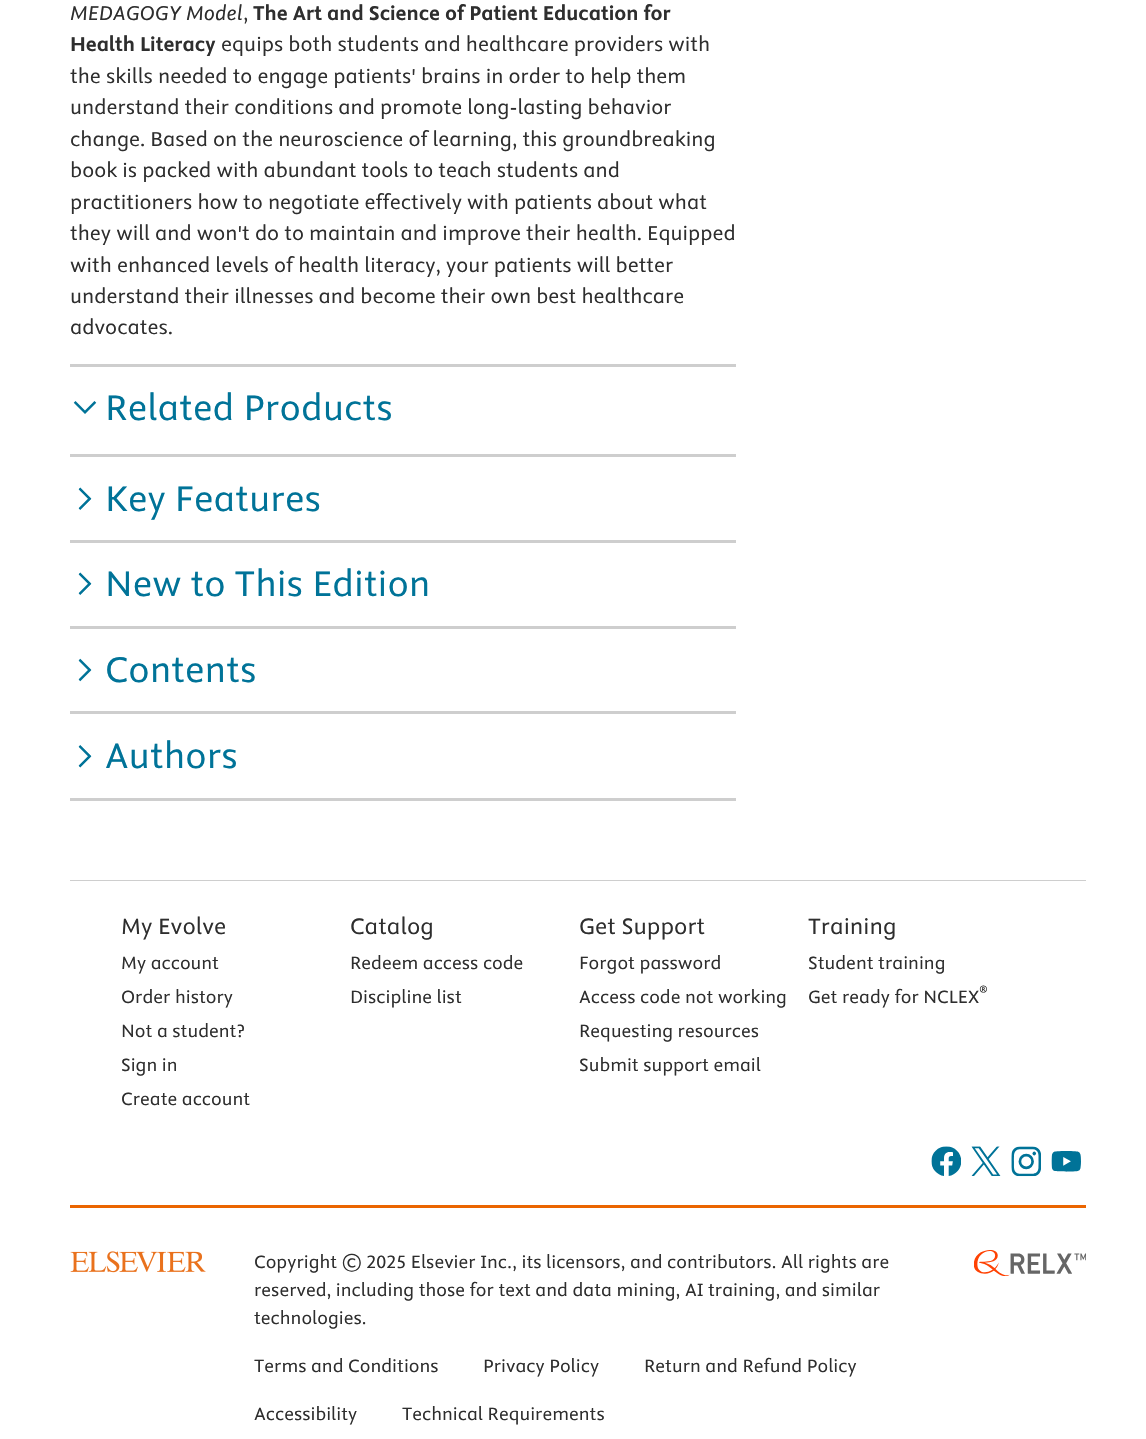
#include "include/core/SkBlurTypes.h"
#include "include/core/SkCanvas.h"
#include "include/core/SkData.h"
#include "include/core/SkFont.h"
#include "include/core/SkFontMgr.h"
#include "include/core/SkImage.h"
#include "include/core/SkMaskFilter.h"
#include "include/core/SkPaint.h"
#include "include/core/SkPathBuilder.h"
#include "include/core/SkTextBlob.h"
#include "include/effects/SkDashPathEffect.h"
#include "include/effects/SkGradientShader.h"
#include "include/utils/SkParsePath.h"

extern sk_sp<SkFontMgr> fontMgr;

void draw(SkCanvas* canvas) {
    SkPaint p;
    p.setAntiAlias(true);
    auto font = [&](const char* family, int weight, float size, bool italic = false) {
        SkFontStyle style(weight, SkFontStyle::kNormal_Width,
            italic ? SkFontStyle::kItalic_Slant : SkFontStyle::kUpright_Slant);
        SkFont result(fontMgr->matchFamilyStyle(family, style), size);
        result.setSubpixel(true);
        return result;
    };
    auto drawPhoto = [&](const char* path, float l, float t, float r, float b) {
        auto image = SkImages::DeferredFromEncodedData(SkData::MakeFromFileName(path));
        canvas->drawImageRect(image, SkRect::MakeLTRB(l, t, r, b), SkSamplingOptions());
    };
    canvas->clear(0xFFFFFFFF);
    auto font1 = font("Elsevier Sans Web", 400, 22.5f, true);
    p.setColor(0xFF2E2E2E);
    canvas->drawString("MEDAGOGY Model", 70, 20, font1, p);
    auto font2 = font("Elsevier Sans Web", 400, 22.5f);
    canvas->drawString(",", 243, 20, font2, p);
    auto font3 = font("Elsevier Sans Web", 700, 22.5f);
    canvas->drawString("The Art and Science of Patient Education for", 253, 20, font3, p);
    canvas->drawString("Health Literacy", 70, 51, font3, p);
    {
        const struct { const char* s; float x, y; } items[] = {
            {"equips both students and healthcare providers with", 221, 51},
            {"the skills needed to engage patients' brains in order to help them", 70, 83},
            {"understand their conditions and promote long-lasting behavior", 70, 114},
            {"change. Based on the neuroscience of learning, this groundbreaking", 70, 146},
            {"book is packed with abundant tools to teach students and", 70, 177},
            {"practitioners how to negotiate effectively with patients about what", 70, 209},
            {"they will and won't do to maintain and improve their health. Equipped", 70, 240},
            {"with enhanced levels of health literacy, your patients will better", 70, 272},
            {"understand their illnesses and become their own best healthcare", 70, 303},
            {"advocates.", 70, 334},
        };
        for (auto [s, x, y] : items) {
            canvas->drawString(s, x, y, font2, p);
        }
    }
    p.setColor(0xFFCECECE);
    canvas->drawRect(SkRect::MakeLTRB(70, 364, 736, 367), p);
    drawPhoto("media/1.png", 73, 401, 97, 414);
    auto font4 = font("Elsevier Sans Web", 400, 40);
    p.setColor(0xFF007398);
    canvas->drawString("Related Products", 105, 420, font4, p);
    p.setColor(0xFFCECECE);
    canvas->drawRect(SkRect::MakeLTRB(70, 454, 736, 457), p);
    drawPhoto("media/2.png", 78, 487, 92, 510);
    p.setColor(0xFF007398);
    canvas->drawString("Key Features", 105, 511, font4, p);
    p.setColor(0xFFCECECE);
    canvas->drawRect(SkRect::MakeLTRB(70, 540, 736, 543), p);
    drawPhoto("media/2.png", 78, 572, 92, 595);
    p.setColor(0xFF007398);
    canvas->drawString("New to This Edition", 105, 596, font4, p);
    p.setColor(0xFFCECECE);
    canvas->drawRect(SkRect::MakeLTRB(70, 626, 736, 629), p);
    drawPhoto("media/3.png", 78, 658, 92, 682);
    p.setColor(0xFF007398);
    canvas->drawString("Contents", 105, 682, font4, p);
    p.setColor(0xFFCECECE);
    canvas->drawRect(SkRect::MakeLTRB(70, 711, 736, 714), p);
    canvas->drawRect(SkRect::MakeLTRB(70, 798, 736, 801), p);
    drawPhoto("media/4.png", 78, 745, 92, 768);
    p.setColor(0xFF007398);
    canvas->drawString("Authors", 105, 768, font4, p);
    p.setColor(0xFFCECECE);
    canvas->drawRect(SkRect::MakeLTRB(70, 880, 1086, 881), p);
    auto font5 = font("Elsevier Sans Web", 400, 25);
    p.setColor(0xFF2E2E2E);
    canvas->drawString("My Evolve", 121, 934, font5, p);
    auto font6 = font("Elsevier Sans Web", 400, 20);
    {
        const struct { const char* s; float x, y; } items[] = {
            {"My account", 121, 969},
            {"Order history", 121, 1003},
            {"Not a student?", 121, 1037},
            {"Sign in", 121, 1071},
            {"Create account", 121, 1105},
        };
        for (auto [s, x, y] : items) {
            canvas->drawString(s, x, y, font6, p);
        }
    }
    canvas->drawString("Catalog", 350, 934, font5, p);
    canvas->drawString("Redeem access code", 350, 969, font6, p);
    canvas->drawString("Discipline list", 350, 1003, font6, p);
    canvas->drawString("Get Support", 579, 934, font5, p);
    {
        const struct { const char* s; float x, y; } items[] = {
            {"Forgot password", 579, 969},
            {"Access code not working", 579, 1003},
            {"Requesting resources", 579, 1037},
            {"Submit support email", 579, 1071},
        };
        for (auto [s, x, y] : items) {
            canvas->drawString(s, x, y, font6, p);
        }
    }
    canvas->drawString("Training", 808, 934, font5, p);
    canvas->drawString("Student training", 808, 969, font6, p);
    canvas->drawString("Get ready for NCLEX", 808, 1003, font6, p);
    auto font7 = font("Elsevier Sans Web", 400, 15);
    canvas->drawString("®", 979, 995, font7, p);
    drawPhoto("media/5.png", 931, 1146, 961, 1176);
    drawPhoto("media/6.png", 971, 1146, 1001, 1176);
    drawPhoto("media/7.png", 1011, 1146, 1041, 1177);
    drawPhoto("media/8.png", 1051, 1151, 1081, 1172);
    p.setColor(0xFFEB6500);
    canvas->drawRect(SkRect::MakeLTRB(70, 1205, 1086, 1208), p);
    drawPhoto("media/9.png", 70, 1251, 206, 1273);
    auto font8 = font("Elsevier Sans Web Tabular", 400, 20);
    p.setColor(0xFF2E2E2E);
    canvas->drawString("Copyright © 2025 Elsevier Inc., its licensors, and contributors.", 254, 1268, font8, p);
    {
        const struct { const char* s; float x, y; } items[] = {
            {"All rights are", 781, 1268},
            {"reserved, including those for text and data mining, AI training, and similar", 254, 1296},
            {"technologies.", 254, 1324},
            {"Terms and Conditions", 254, 1372},
            {"Privacy Policy", 483, 1372},
            {"Return and Refund Policy", 644, 1372},
            {"Accessibility", 254, 1420},
            {"Technical Requirements", 402, 1420},
        };
        for (auto [s, x, y] : items) {
            canvas->drawString(s, x, y, font6, p);
        }
    }
    drawPhoto("media/10.png", 974, 1250, 1086, 1276);
}
